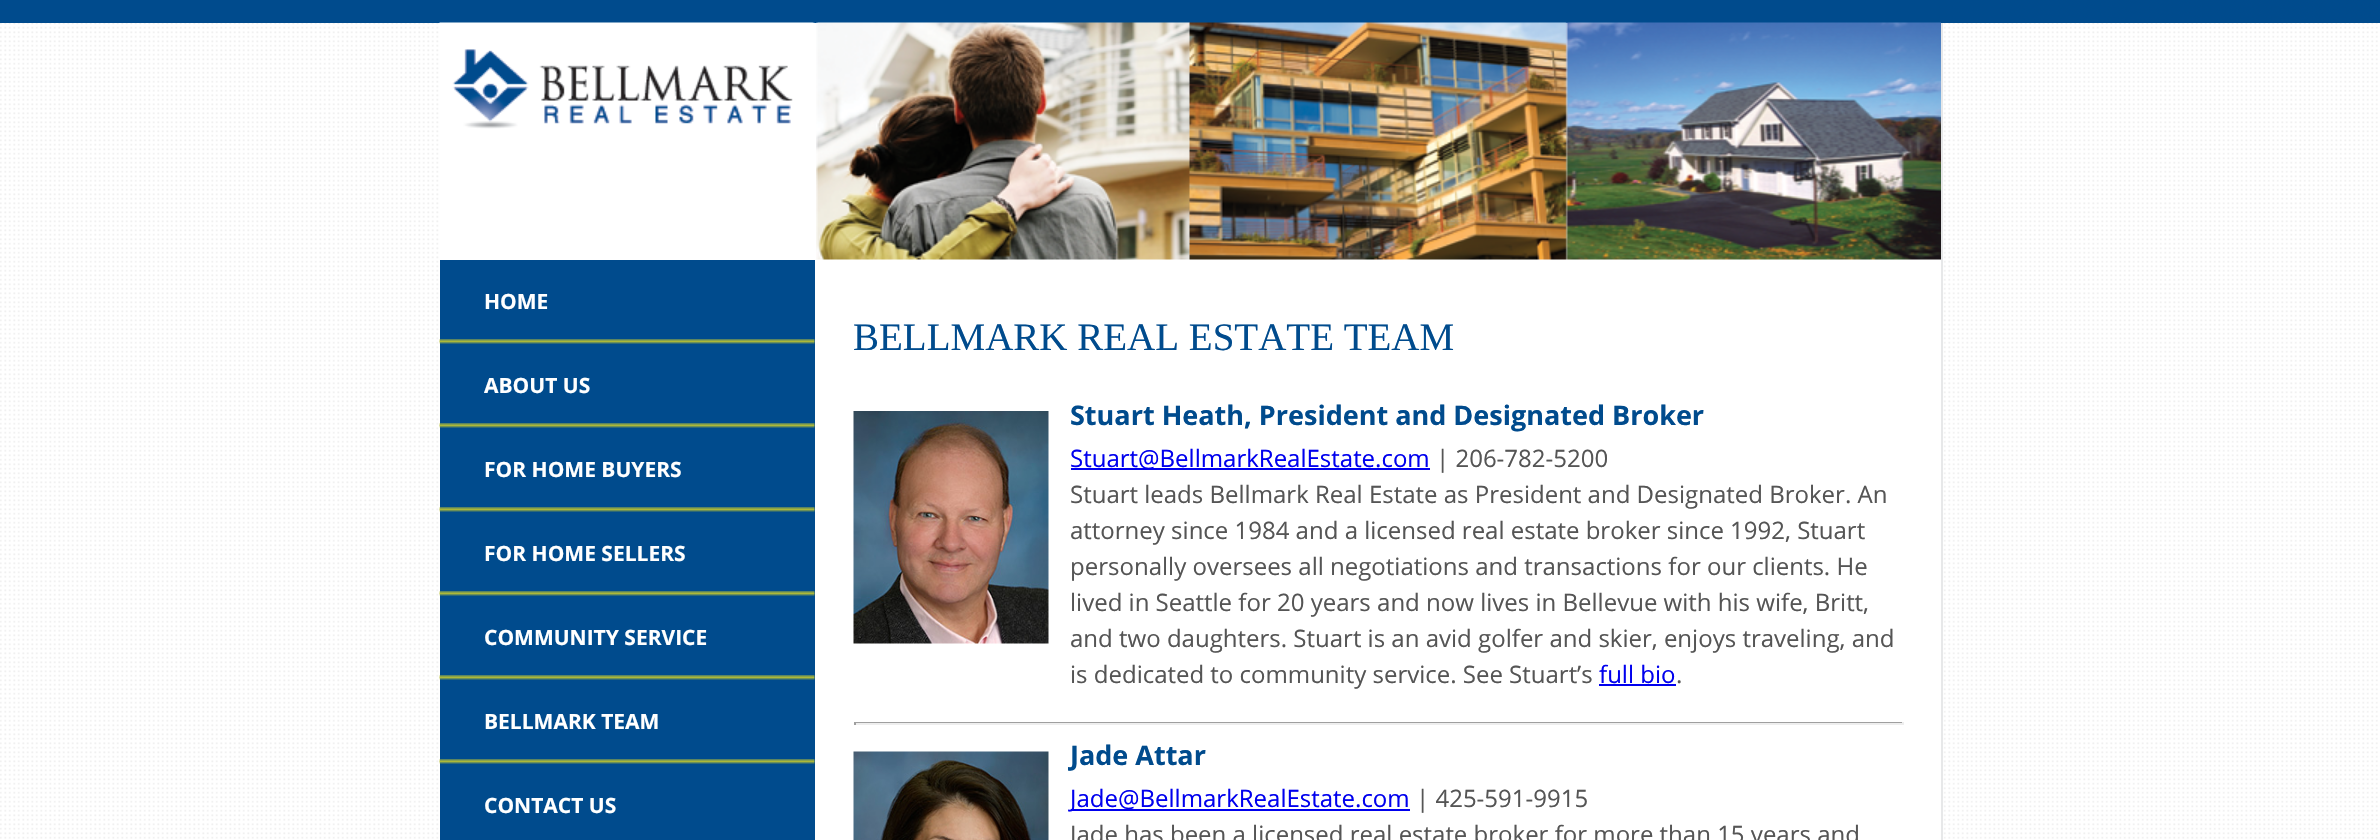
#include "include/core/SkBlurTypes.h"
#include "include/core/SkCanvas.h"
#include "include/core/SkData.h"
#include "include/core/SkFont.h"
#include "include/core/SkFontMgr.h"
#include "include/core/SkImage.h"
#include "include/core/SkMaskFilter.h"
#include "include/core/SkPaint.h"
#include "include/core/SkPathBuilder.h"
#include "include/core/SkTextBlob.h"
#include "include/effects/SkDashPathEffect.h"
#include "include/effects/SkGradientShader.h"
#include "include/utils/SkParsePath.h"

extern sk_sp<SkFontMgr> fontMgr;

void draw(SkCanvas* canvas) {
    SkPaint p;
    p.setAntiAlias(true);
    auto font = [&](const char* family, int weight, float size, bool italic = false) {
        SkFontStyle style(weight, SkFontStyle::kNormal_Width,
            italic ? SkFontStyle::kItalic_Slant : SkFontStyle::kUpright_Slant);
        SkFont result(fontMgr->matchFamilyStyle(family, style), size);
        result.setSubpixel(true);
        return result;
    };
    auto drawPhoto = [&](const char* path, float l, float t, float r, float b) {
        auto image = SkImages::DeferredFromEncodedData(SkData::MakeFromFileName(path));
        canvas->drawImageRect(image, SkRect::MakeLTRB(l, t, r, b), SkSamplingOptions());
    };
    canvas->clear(0xFFFFFFFF);
    drawPhoto("media/1.png", 0, 23, 2378, 839);
    {
        const struct { float l, t, r, b; SkColor color; } items[] = {
            {0, 0, 2380, 23, 0xFF004B8D},
            {440, 23, 1941, 839, 0xFFFFFFFF},
            {1941, 23, 1943, 840, 0xFFE7E8E9},
        };
        for (auto [l, t, r, b, color] : items) {
            p.setColor(color);
            canvas->drawRect(SkRect::MakeLTRB(l, t, r, b), p);
        }
    }
    drawPhoto("media/2.png", 439, 22, 815, 129);
    drawPhoto("media/3.png", 816, 22, 1941, 260);
    p.setColor(0xFF004B8D);
    canvas->drawRect(SkRect::MakeLTRB(440, 260, 815, 840), p);
    drawPhoto("media/4.png", 439, 339, 815, 344);
    auto font1 = font("Open Sans", 700, 21);
    p.setColor(0xFFFFFFFF);
    canvas->drawString("HOME", 484, 309, font1, p);
    drawPhoto("media/4.png", 439, 423, 815, 428);
    canvas->drawString("ABOUT US", 484, 393, font1, p);
    drawPhoto("media/4.png", 439, 507, 815, 512);
    canvas->drawString("FOR HOME BUYERS", 484, 477, font1, p);
    drawPhoto("media/4.png", 439, 591, 815, 596);
    canvas->drawString("FOR HOME SELLERS", 484, 561, font1, p);
    drawPhoto("media/4.png", 439, 675, 815, 680);
    canvas->drawString("COMMUNITY SERVICE", 484, 645, font1, p);
    drawPhoto("media/4.png", 439, 759, 815, 764);
    canvas->drawString("BELLMARK TEAM", 484, 729, font1, p);
    canvas->drawString("CONTACT US", 484, 813, font1, p);
    auto font2 = font("Liberation Serif", 400, 39);
    p.setColor(0xFF004B8D);
    canvas->drawString("BELLMARK REAL ESTATE TEAM", 853, 350, font2, p);
    drawPhoto("media/5.png", 853, 411, 1049, 644);
    auto font3 = font("Open Sans", 700, 27);
    canvas->drawString("Stuart Heath, President and Designated Broker", 1070, 425, font3, p);
    p.setColor(0xFF0000EE);
    canvas->drawRect(SkRect::MakeLTRB(1071, 468, 1430, 470), p);
    auto font4 = font("Open Sans", 400, 24);
    canvas->drawString("Stuart@BellmarkRealEstate.com", 1070, 467, font4, p);
    p.setColor(0xFF555555);
    {
        const struct { const char* s; float x, y; } items[] = {
            {"| 206-782-5200", 1436, 467},
            {"Stuart leads Bellmark Real Estate as President and Designated Broker. An", 1070, 503},
            {"attorney since 1984 and a licensed real estate broker since 1992, Stuart", 1070, 539},
            {"personally oversees all negotiations and transactions for our clients. He", 1070, 575},
            {"lived in Seattle for 20 years and now lives in Bellevue with his wife, Britt,", 1070, 611},
            {"and two daughters. Stuart is an avid golfer and skier, enjoys traveling, and", 1070, 647},
            {"is dedicated to community service. See Stuart’s", 1070, 683},
        };
        for (auto [s, x, y] : items) {
            canvas->drawString(s, x, y, font4, p);
        }
    }
    p.setColor(0xFF0000EE);
    canvas->drawString("full bio", 1599, 683, font4, p);
    canvas->drawRect(SkRect::MakeLTRB(1599, 684, 1676, 686), p);
    p.setColor(0xFF555555);
    canvas->drawString(".", 1676, 683, font4, p);
    {
        const struct { float l, t, r, b; SkColor color; } items[] = {
            {854, 722, 1904, 723, 0xFF9F9F9F},
            {1902, 722, 1904, 725, 0xFFEEEEEE},
            {854, 723, 1904, 725, 0xFFEEEEEE},
            {854, 722, 856, 725, 0xFF9F9F9F},
        };
        for (auto [l, t, r, b, color] : items) {
            p.setColor(color);
            canvas->drawRect(SkRect::MakeLTRB(l, t, r, b), p);
        }
    }
    drawPhoto("media/6.png", 853, 751, 1049, 840);
    p.setColor(0xFF004B8D);
    canvas->drawString("Jade Attar", 1070, 765, font3, p);
    p.setColor(0xFF0000EE);
    canvas->drawRect(SkRect::MakeLTRB(1071, 809, 1410, 811), p);
    canvas->drawString("Jade@BellmarkRealEstate.com", 1070, 807, font4, p);
    p.setColor(0xFF555555);
    canvas->drawString("| 425-591-9915", 1416, 807, font4, p);
    canvas->drawString("Jade has been a licensed real estate broker for more than 15 years and", 1070, 843, font4, p);
}
